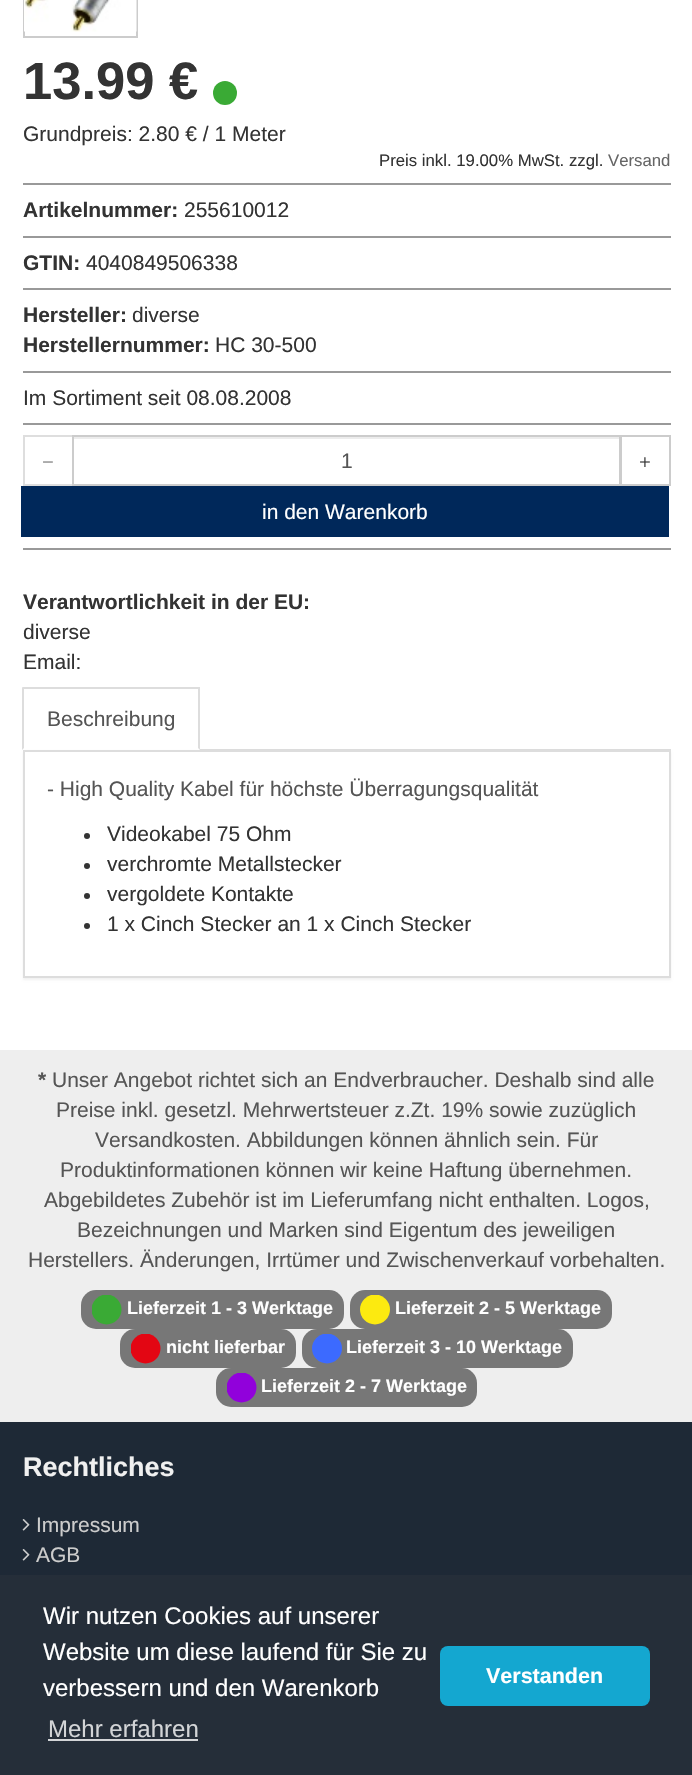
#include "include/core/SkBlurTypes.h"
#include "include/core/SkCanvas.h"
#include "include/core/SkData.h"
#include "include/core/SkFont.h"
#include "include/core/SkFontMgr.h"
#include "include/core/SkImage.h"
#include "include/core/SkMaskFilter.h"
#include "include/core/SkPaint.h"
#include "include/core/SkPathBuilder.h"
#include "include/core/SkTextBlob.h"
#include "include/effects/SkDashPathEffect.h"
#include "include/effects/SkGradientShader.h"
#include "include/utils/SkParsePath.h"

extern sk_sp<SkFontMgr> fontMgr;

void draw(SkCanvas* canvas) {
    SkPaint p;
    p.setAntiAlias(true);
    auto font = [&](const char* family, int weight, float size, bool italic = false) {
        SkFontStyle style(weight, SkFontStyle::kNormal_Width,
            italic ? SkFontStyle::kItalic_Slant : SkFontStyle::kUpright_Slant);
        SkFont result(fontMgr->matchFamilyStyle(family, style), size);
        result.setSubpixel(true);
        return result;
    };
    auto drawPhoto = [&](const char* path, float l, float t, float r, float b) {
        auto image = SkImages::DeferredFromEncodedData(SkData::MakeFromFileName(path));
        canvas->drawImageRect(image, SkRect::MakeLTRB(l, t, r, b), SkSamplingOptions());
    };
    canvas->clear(0xFFFFFFFF);
    p.setStyle(SkPaint::kStroke_Style);
    p.setStrokeWidth(2);
    p.setColor(0xFFCCCCCC);
    canvas->drawRect(SkRect::MakeLTRB(24, -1, 137, 37), p);
    drawPhoto("media/1.png", 24, 0, 137, 32);
    p.setStyle(SkPaint::kFill_Style);
    p.setColor(0xFF999999);
    canvas->drawRect(SkRect::MakeLTRB(23, 183, 671, 185), p);
    auto font1 = font("Liberation Sans", 700, 52.5f);
    p.setColor(0xFF333333);
    canvas->drawString("13.99 €", 23, 99, font1, p);
    p.setColor(0xFF3AAA35);
    canvas->drawCircle(225, 93, 12, p);
    auto font2 = font("Liberation Sans", 400, 21);
    p.setColor(0xFF333333);
    canvas->drawString("Grundpreis: 2.80 € / 1 Meter", 23, 141, font2, p);
    auto font3 = font("Liberation Sans", 400, 16.75f);
    canvas->drawString("Preis inkl. 19.00% MwSt. zzgl.", 379, 166, font3, p);
    p.setColor(0xFF656565);
    canvas->drawString("Versand", 608, 166, font3, p);
    p.setColor(0xFF999999);
    canvas->drawRect(SkRect::MakeLTRB(23, 236, 671, 238), p);
    auto font4 = font("Liberation Sans", 700, 21);
    p.setColor(0xFF333333);
    canvas->drawString("Artikelnummer:", 23, 217, font4, p);
    canvas->drawString("255610012", 184, 217, font2, p);
    p.setColor(0xFF999999);
    canvas->drawRect(SkRect::MakeLTRB(23, 288, 671, 290), p);
    p.setColor(0xFF333333);
    canvas->drawString("GTIN:", 23, 270, font4, p);
    canvas->drawString("4040849506338", 86, 270, font2, p);
    p.setColor(0xFF999999);
    canvas->drawRect(SkRect::MakeLTRB(23, 371, 671, 373), p);
    p.setColor(0xFF333333);
    canvas->drawString("Hersteller:", 23, 322, font4, p);
    canvas->drawString("diverse", 132, 322, font2, p);
    canvas->drawString("Herstellernummer:", 23, 352, font4, p);
    canvas->drawString("HC 30-500", 215, 352, font2, p);
    p.setColor(0xFF999999);
    canvas->drawRect(SkRect::MakeLTRB(23, 423, 671, 425), p);
    p.setColor(0xFF333333);
    canvas->drawString("Im Sortiment seit 08.08.2008", 23, 405, font2, p);
    p.setColor(0xFF999999);
    canvas->drawRect(SkRect::MakeLTRB(23, 548, 671, 550), p);
    p.setStyle(SkPaint::kStroke_Style);
    p.setColor(0xFFDEDEDE);
    canvas->drawRect(SkRect::MakeLTRB(24, 436, 73, 485), p);
    auto font5 = font("Liberation Serif", 400, 21);
    p.setStyle(SkPaint::kFill_Style);
    p.setColor(0xFF7A7A7A);
    canvas->drawString("−", 42, 469, font5, p);
    p.setColor(0xFFECECEC);
    canvas->drawRect(SkRect::MakeLTRB(74, 437, 620, 439), p);
    p.setStyle(SkPaint::kStroke_Style);
    p.setColor(0xFFCCCCCC);
    canvas->drawRect(SkRect::MakeLTRB(73, 436, 620, 485), p);
    p.setStyle(SkPaint::kFill_Style);
    p.setColor(0xFF555555);
    canvas->drawString("1", 341, 468, font2, p);
    p.setStyle(SkPaint::kStroke_Style);
    p.setColor(0xFFCCCCCC);
    canvas->drawRect(SkRect::MakeLTRB(621, 436, 670, 485), p);
    p.setStyle(SkPaint::kFill_Style);
    p.setColor(0xFF333333);
    canvas->drawString("+", 639, 469, font5, p);
    p.setColor(0xFF00285A);
    canvas->drawRect(SkRect::MakeLTRB(21, 486, 669, 537), p);
    p.setColor(0xFFFFFFFF);
    canvas->drawString("in den Warenkorb", 262, 519, font2, p);
    p.setColor(0xFF333333);
    canvas->drawString("Verantwortlichkeit in der EU:", 23, 609, font4, p);
    canvas->drawString("diverse", 23, 639, font2, p);
    canvas->drawString("Email:", 23, 669, font2, p);
    p.setColor(0xFFDDDDDD);
    canvas->drawRect(SkRect::MakeLTRB(200, 749, 671, 750), p);
    canvas->drawRect(SkRect::MakeLTRB(23, 687, 200, 689), p);
    p.setColor(0x0D000000);
    p.setMaskFilter(SkMaskFilter::MakeBlur(kNormal_SkBlurStyle, 1));
    canvas->drawRect(SkRect::MakeLTRB(23, 752, 671, 980), p);
    p.setMaskFilter(nullptr);
    p.setColor(0xFFDDDDDD);
    canvas->drawPath(SkPathBuilder().moveTo(200, 687).lineTo(200, 750).lineTo(198, 748).lineTo(198, 688).close().detach(), p);
    canvas->drawPath(SkPathBuilder().moveTo(22, 750).lineTo(22, 687).lineTo(24, 688).lineTo(24, 748).close().detach(), p);
    p.setColor(0xFF555555);
    canvas->drawString("Beschreibung", 47, 726, font2, p);
    p.setColor(0xFFFFFFFF);
    canvas->drawRect(SkRect::MakeLTRB(24, 751, 670, 977), p);
    p.setStyle(SkPaint::kStroke_Style);
    p.setColor(0xFFDDDDDD);
    canvas->drawRect(SkRect::MakeLTRB(24, 751, 670, 977), p);
    p.setStyle(SkPaint::kFill_Style);
    p.setColor(0xFF555555);
    canvas->drawString("- High Quality Kabel für höchste Überragungsqualität", 47, 796, font2, p);
    p.setColor(0xFF333333);
    canvas->drawCircle(87, 836, 3, p);
    canvas->drawString("Videokabel 75 Ohm", 107, 841, font2, p);
    canvas->drawCircle(87, 866, 3, p);
    canvas->drawString("verchromte Metallstecker", 107, 871, font2, p);
    canvas->drawCircle(87, 896, 3, p);
    canvas->drawString("vergoldete Kontakte", 107, 901, font2, p);
    canvas->drawCircle(87, 926, 3, p);
    canvas->drawString("1 x Cinch Stecker an 1 x Cinch Stecker", 107, 931, font2, p);
    p.setColor(0xFFEEEEEE);
    canvas->drawRect(SkRect::MakeLTRB(0, 1050, 692, 1422), p);
    p.setColor(0xFF555555);
    canvas->drawString("*", 38, 1087, font4, p);
    {
        const struct { const char* s; float x, y; } items[] = {
            {"Unser Angebot richtet sich an Endverbraucher. Deshalb sind alle", 52, 1087},
            {"Preise inkl. gesetzl. Mehrwertsteuer z.Zt. 19% sowie zuzüglich", 56, 1117},
            {"Versandkosten. Abbildungen können ähnlich sein. Für", 95, 1147},
            {"Produktinformationen können wir keine Haftung übernehmen.", 60, 1177},
            {"Abgebildetes Zubehör ist im Lieferumfang nicht enthalten. Logos,", 44, 1207},
            {"Bezeichnungen und Marken sind Eigentum des jeweiligen", 77, 1237},
            {"Herstellers. Änderungen, Irrtümer und Zwischenverkauf vorbehalten.", 28, 1267},
        };
        for (auto [s, x, y] : items) {
            canvas->drawString(s, x, y, font2, p);
        }
    }
    p.setColor(0xFF777777);
    canvas->drawRoundRect(SkRect::MakeLTRB(81, 1290, 344, 1329), 15, 15, p);
    canvas->save();
    canvas->clipRect(SkRect::MakeLTRB(92, 1295, 122, 1325));
    p.setColor(0xFF3AAA35);
    canvas->drawCircle(106.5f, 1309.5f, 15, p);
    canvas->restore();
    auto font6 = font("Liberation Sans", 700, 18);
    p.setColor(0xFFFFFFFF);
    canvas->drawString("Lieferzeit 1 - 3 Werktage", 127, 1314, font6, p);
    p.setColor(0xFF777777);
    canvas->drawRoundRect(SkRect::MakeLTRB(350, 1290, 612, 1329), 15, 15, p);
    canvas->save();
    canvas->clipRect(SkRect::MakeLTRB(360, 1295, 390, 1325));
    p.setColor(0xFFFCEA10);
    canvas->drawCircle(375, 1309.5f, 15, p);
    canvas->restore();
    p.setColor(0xFFFFFFFF);
    canvas->drawString("Lieferzeit 2 - 5 Werktage", 395, 1314, font6, p);
    p.setColor(0xFF777777);
    canvas->drawRoundRect(SkRect::MakeLTRB(120, 1329, 296, 1368), 15, 15, p);
    canvas->save();
    canvas->clipRect(SkRect::MakeLTRB(131, 1334, 161, 1364));
    p.setColor(0xFFE30613);
    canvas->drawCircle(145.5f, 1348.5f, 15, p);
    canvas->restore();
    p.setColor(0xFFFFFFFF);
    canvas->drawString("nicht lieferbar", 166, 1353, font6, p);
    p.setColor(0xFF777777);
    canvas->drawRoundRect(SkRect::MakeLTRB(302, 1329, 573, 1368), 15, 15, p);
    canvas->save();
    canvas->clipRect(SkRect::MakeLTRB(312, 1334, 342, 1364));
    p.setColor(0xFF3C6AFF);
    canvas->drawCircle(327, 1348.5f, 15, p);
    canvas->restore();
    p.setColor(0xFFFFFFFF);
    canvas->drawString("Lieferzeit 3 - 10 Werktage", 346, 1353, font6, p);
    p.setColor(0xFF777777);
    canvas->drawRoundRect(SkRect::MakeLTRB(216, 1368, 477, 1407), 15, 15, p);
    canvas->save();
    canvas->clipRect(SkRect::MakeLTRB(227, 1373, 257, 1403));
    p.setColor(0xFF9101DB);
    canvas->drawCircle(241.5f, 1387.5f, 15, p);
    canvas->restore();
    p.setColor(0xFFFFFFFF);
    canvas->drawString("Lieferzeit 2 - 7 Werktage", 261, 1392, font6, p);
    p.setColor(0xFF1E2936);
    canvas->drawRect(SkRect::MakeLTRB(0, 1422, 692, 1575), p);
    auto font7 = font("Liberation Sans", 700, 27);
    p.setColor(0xFFF0F0F0);
    canvas->drawString("Rechtliches", 23, 1476, font7, p);
    drawPhoto("media/2.png", 22, 1519, 30, 1531);
    p.setColor(0xFFCCCCCC);
    canvas->drawString("Impressum", 36, 1532, font2, p);
    drawPhoto("media/2.png", 22, 1549, 30, 1561);
    canvas->drawString("AGB", 36, 1562, font2, p);
    p.setColor(0xFF252E39);
    canvas->drawRect(SkRect::MakeLTRB(0, 1575, 692, 1775), p);
    auto font8 = font("Liberation Sans", 400, 24);
    p.setColor(0xFFFFFFFF);
    {
        const struct { const char* s; float x, y; } items[] = {
            {"Wir nutzen Cookies auf unserer", 43, 1624},
            {"Website um diese laufend für Sie zu", 43, 1660},
            {"verbessern und den Warenkorb", 43, 1696},
        };
        for (auto [s, x, y] : items) {
            canvas->drawString(s, x, y, font8, p);
        }
    }
    p.setColor(0xFFD3D5D7);
    canvas->drawString("Mehr erfahren", 48, 1737, font8, p);
    canvas->drawRect(SkRect::MakeLTRB(48, 1739, 198, 1741), p);
    p.setColor(0xFF14A7D0);
    canvas->drawRoundRect(SkRect::MakeLTRB(440, 1646, 650, 1706), 8, 8, p);
    auto font9 = font("Liberation Sans", 700, 21.5f);
    p.setColor(0xFFFFFFFF);
    canvas->drawString("Verstanden", 486, 1683, font9, p);
}
